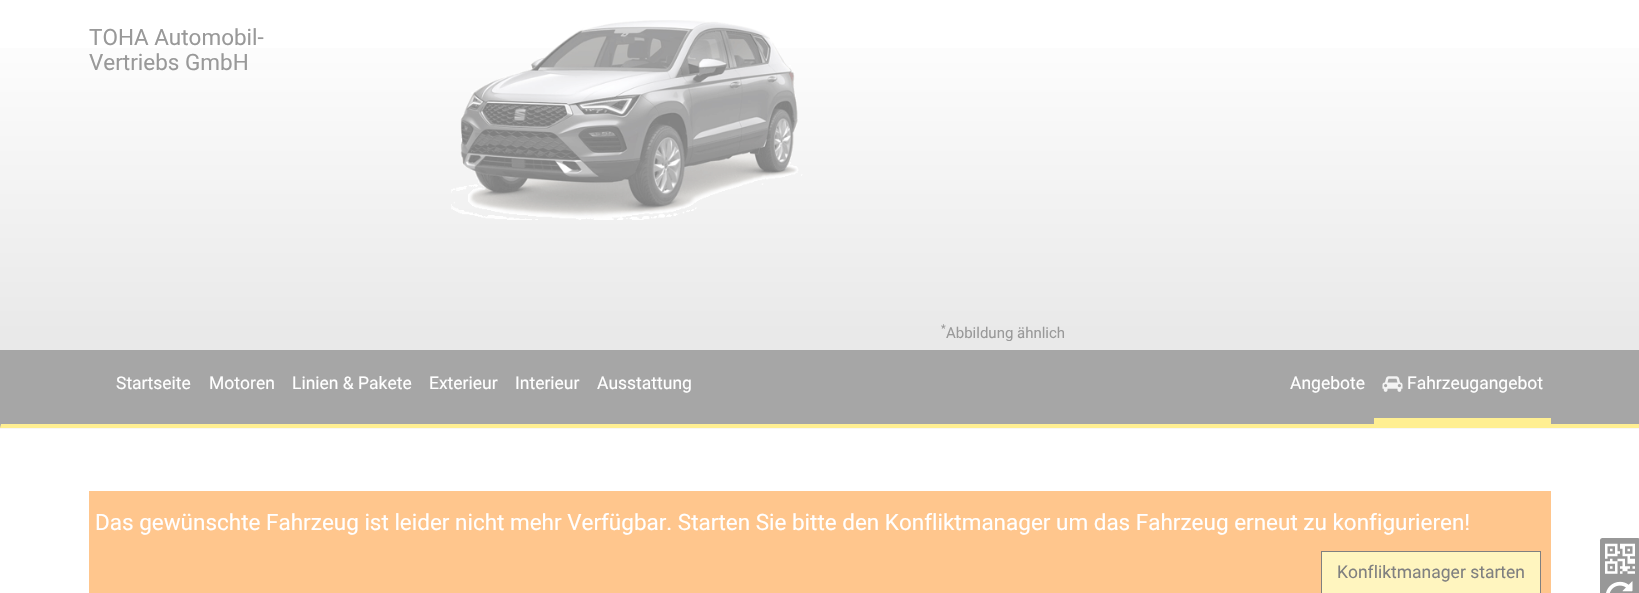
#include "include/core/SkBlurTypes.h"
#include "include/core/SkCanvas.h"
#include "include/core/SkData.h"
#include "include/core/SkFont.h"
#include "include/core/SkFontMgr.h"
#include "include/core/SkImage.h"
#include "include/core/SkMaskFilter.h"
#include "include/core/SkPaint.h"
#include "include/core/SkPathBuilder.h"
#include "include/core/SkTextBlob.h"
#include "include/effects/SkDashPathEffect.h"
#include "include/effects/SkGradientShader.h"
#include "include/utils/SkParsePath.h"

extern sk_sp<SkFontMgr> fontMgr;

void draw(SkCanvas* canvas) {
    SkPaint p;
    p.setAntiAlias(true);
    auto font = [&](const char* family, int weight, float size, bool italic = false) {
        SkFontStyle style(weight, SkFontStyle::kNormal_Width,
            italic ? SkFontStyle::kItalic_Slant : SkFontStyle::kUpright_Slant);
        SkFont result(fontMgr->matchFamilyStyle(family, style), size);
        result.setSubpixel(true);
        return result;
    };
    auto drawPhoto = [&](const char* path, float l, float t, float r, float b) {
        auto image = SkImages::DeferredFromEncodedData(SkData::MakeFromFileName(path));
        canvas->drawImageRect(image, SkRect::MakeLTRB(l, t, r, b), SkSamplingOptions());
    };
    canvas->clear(0xFFFFFFFF);
    {
        const SkColor colors[] = {0xFFFFFFFF, 0xFFE9E9E9};
        const float stops[] = {0, 0.95f};
        const SkPoint ends[] = {{820, 12}, {820, 350}};
        p.setShader(SkGradientShader::MakeLinear(ends, colors, stops, 2, SkTileMode::kClamp));
        p.setAlpha(255);
    }
    canvas->drawRect(SkRect::MakeLTRB(0, 48, 1639, 350), p);
    auto font1 = font("Roboto", 400, 22.5f);
    p.setShader(nullptr);
    p.setColor(0xFF999999);
    canvas->drawString("TOHA Automobil-", 89, 45, font1, p);
    canvas->drawString("Vertriebs GmbH", 89, 70, font1, p);
    drawPhoto("media/1.png", 451, 20, 803, 220);
    auto font2 = font("Roboto", 400, 15);
    canvas->drawString("Abbildung ähnlich", 946, 338, font2, p);
    auto font3 = font("Roboto", 400, 11);
    canvas->drawString("*", 941, 332, font3, p);
    p.setColor(0xFFA6A6A6);
    canvas->drawRect(SkRect::MakeLTRB(0, 350, 1639, 428), p);
    p.setColor(0xFFFFEF92);
    canvas->drawPath(SkPathBuilder().moveTo(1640, 428).lineTo(0, 428).lineTo(1, 424).lineTo(1639, 424).close().detach(), p);
    auto font4 = font("Roboto", 400, 17.5f);
    p.setColor(0xFFFFFFFF);
    {
        const struct { const char* s; float x, y; } items[] = {
            {"Startseite", 116, 389},
            {"Motoren", 209, 389},
            {"Linien & Pakete", 292, 389},
            {"Exterieur", 429, 389},
            {"Interieur", 515, 389},
            {"Ausstattung", 597, 389},
            {"Angebote", 1290, 389},
        };
        for (auto [s, x, y] : items) {
            canvas->drawString(s, x, y, font4, p);
        }
    }
    p.setColor(0xFFFFEF92);
    canvas->drawRect(SkRect::MakeLTRB(1374, 418, 1551, 424), p);
    drawPhoto("media/2.png", 1382, 376, 1403, 392);
    p.setColor(0xFFFFFFFF);
    canvas->drawString("Fahrzeugangebot", 1407, 389, font4, p);
    p.setColor(0xFFF7F7F7);
    canvas->drawRect(SkRect::MakeLTRB(0, 428, 1639, 429), p);
    p.setColor(0xFFFFC68D);
    canvas->drawRect(SkRect::MakeLTRB(89, 491, 1551, 593), p);
    p.setColor(0xFFFFFFFF);
    canvas->drawString("Das gewünschte Fahrzeug ist leider nicht mehr Verfügbar. Starten Sie bitte den Konfliktmanager um das Fahrzeug erneut zu konfigurieren!", 95, 530, font1, p);
    p.setColor(0xFFFFF5BF);
    canvas->drawRect(SkRect::MakeLTRB(1321.5f, 551.5f, 1540.5f, 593.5f), p);
    p.setStyle(SkPaint::kStroke_Style);
    p.setStrokeWidth(1);
    p.setColor(0xFF808080);
    canvas->drawRect(SkRect::MakeLTRB(1321.5f, 551.5f, 1540.5f, 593.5f), p);
    p.setStyle(SkPaint::kFill_Style);
    canvas->drawString("Konfliktmanager starten", 1337, 578, font4, p);
    p.setColor(0xFF989898);
    canvas->drawRoundRect(SkRect::MakeLTRB(1600, 538, 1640, 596), 2.5f, 2.5f, p);
    drawPhoto("media/3.png", 1605, 543, 1635, 574);
    drawPhoto("media/4.png", 1606, 581, 1633, 593);
}
